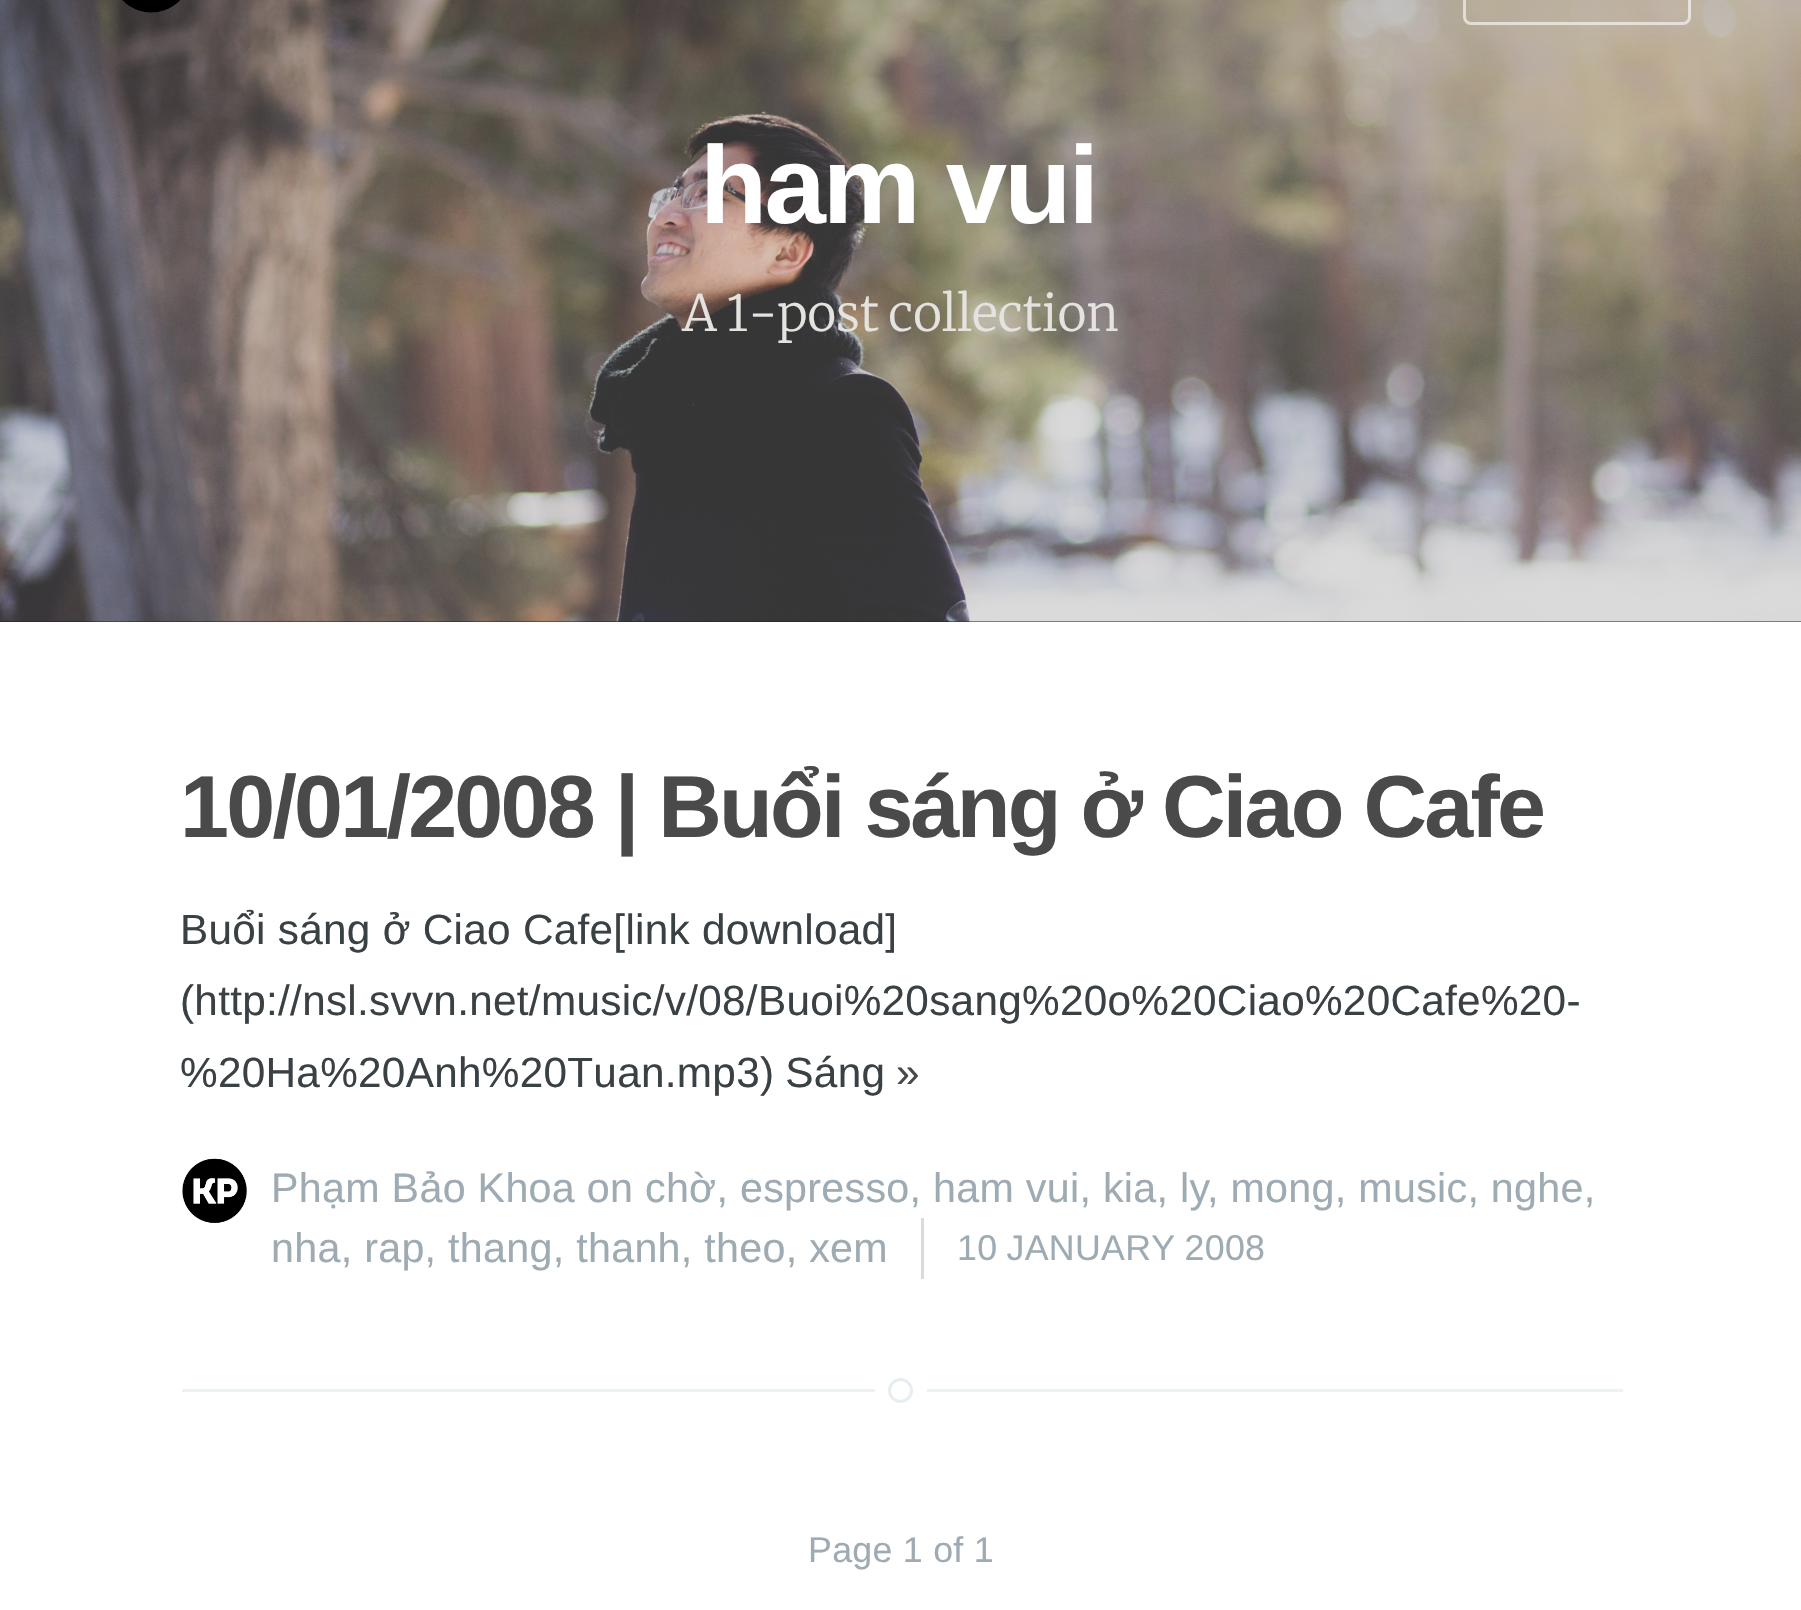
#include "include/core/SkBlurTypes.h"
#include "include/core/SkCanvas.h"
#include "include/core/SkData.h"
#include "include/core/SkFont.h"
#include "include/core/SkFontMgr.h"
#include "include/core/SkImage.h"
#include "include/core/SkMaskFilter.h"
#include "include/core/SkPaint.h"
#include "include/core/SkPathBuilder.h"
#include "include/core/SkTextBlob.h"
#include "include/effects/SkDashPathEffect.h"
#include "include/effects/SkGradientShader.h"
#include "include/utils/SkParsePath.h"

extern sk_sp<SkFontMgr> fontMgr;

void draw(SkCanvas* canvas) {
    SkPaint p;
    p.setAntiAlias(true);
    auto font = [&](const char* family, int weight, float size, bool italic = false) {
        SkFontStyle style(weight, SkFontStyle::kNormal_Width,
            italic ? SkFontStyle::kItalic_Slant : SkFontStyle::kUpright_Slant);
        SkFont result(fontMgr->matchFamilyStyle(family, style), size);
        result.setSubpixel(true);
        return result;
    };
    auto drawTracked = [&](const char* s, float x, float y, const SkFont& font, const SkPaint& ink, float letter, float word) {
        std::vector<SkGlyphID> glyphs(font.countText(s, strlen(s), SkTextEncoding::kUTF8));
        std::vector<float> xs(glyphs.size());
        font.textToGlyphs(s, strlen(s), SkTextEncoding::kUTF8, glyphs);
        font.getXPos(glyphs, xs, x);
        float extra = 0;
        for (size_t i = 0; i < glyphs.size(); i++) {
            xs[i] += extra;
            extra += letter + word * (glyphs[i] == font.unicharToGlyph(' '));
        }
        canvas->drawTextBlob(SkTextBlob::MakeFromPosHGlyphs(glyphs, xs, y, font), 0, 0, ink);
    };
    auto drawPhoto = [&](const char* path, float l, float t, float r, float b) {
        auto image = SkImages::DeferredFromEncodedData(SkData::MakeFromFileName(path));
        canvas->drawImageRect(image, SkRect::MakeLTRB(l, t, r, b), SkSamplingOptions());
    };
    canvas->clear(0xFFFFFFFF);
    p.setColor(0xFF222222);
    canvas->drawRect(SkRect::MakeLTRB(0, 621, 1801, 622), p);
    drawPhoto("media/1.png", 0, 0, 1801, 622);
    drawPhoto("media/2.png", 122, 0, 180, 13);
    p.setStyle(SkPaint::kStroke_Style);
    p.setStrokeWidth(3);
    p.setColor(0x99FFFFFF);
    canvas->drawRoundRect(SkRect::MakeLTRB(1464.5f, -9.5f, 1689.5f, 23.5f), 6.5f, 6.5f, p);
    auto font1 = font("Liberation Sans", 700, 110);
    p.setStyle(SkPaint::kFill_Style);
    p.setColor(0xFFFFFFFF);
    drawTracked("ham vui", 700, 223, font1, p, -2.75f, 0);
    auto font2 = font("Merriweather", 300, 49.5f);
    p.setColor(0xFFE4E3E0);
    drawTracked("A 1-post collection", 682, 331, font2, p, 0.28f, -3);
    p.setColor(0xFFEBF2F6);
    canvas->drawRect(SkRect::MakeLTRB(182, 1389, 1623, 1392), p);
    auto font3 = font("Liberation Sans", 700, 88);
    p.setColor(0xFF4A4A4A);
    drawTracked("10/01/2008 | Buổi sáng ở Ciao Cafe", 180, 837, font3, p, -2.75f, 0);
    auto font4 = font("Liberation Sans", 400, 42.3f);
    p.setColor(0xFF3A4145);
    drawTracked("Buổi sáng ở Ciao Cafe[link download]", 180, 944, font4, p, 0.28f, 0);
    drawTracked("(http://nsl.svvn.net/music/v/08/Buoi%20sang%20o%20Ciao%20Cafe%20-", 180, 1015, font4, p, 0.28f, 0);
    drawTracked("%20Ha%20Anh%20Tuan.mp3) Sáng", 180, 1087, font4, p, 0.28f, -1);
    p.setColor(0xFF4A4A4A);
    drawTracked("»", 896, 1087, font4, p, 0.28f, 0);
    drawPhoto("media/3.png", 182, 1158, 247, 1223);
    auto font5 = font("Liberation Sans", 400, 41.25f);
    p.setColor(0xFF9EABB3);
    {
        const struct { const char* s; float x, y; } items[] = {
            {"Phạm Bảo Khoa on chờ, espresso, ham vui, kia, ly", 271, 1202},
            {", mong, music, nghe,", 1207, 1202},
            {"nha, rap, thang, thanh, theo, xem", 271, 1262},
        };
        for (auto [s, x, y] : items) {
            drawTracked(s, x, y, font5, p, 0.28f, 0);
        }
    }
    p.setColor(0xFFD5DBDE);
    canvas->drawRect(SkRect::MakeLTRB(921, 1218, 924, 1279), p);
    auto font6 = font("Liberation Sans", 400, 35.75f);
    p.setColor(0xFF9EABB3);
    drawTracked("10 JANUARY 2008", 957, 1260, font6, p, 0.28f, -1);
    p.setStyle(SkPaint::kStroke_Style);
    p.setStrokeWidth(14);
    p.setColor(0xFFFFFFFF);
    canvas->drawCircle(901, 1390, 19, p);
    p.setStyle(SkPaint::kFill_Style);
    canvas->drawCircle(900.5f, 1390.5f, 11, p);
    p.setStyle(SkPaint::kStroke_Style);
    p.setStrokeWidth(3);
    p.setColor(0xFFE7EEF2);
    canvas->drawCircle(900.5f, 1390.5f, 11, p);
    p.setStyle(SkPaint::kFill_Style);
    p.setColor(0xFF9EABB3);
    drawTracked("Page 1 of 1", 808, 1562, font6, p, 0.28f, 0);
}
